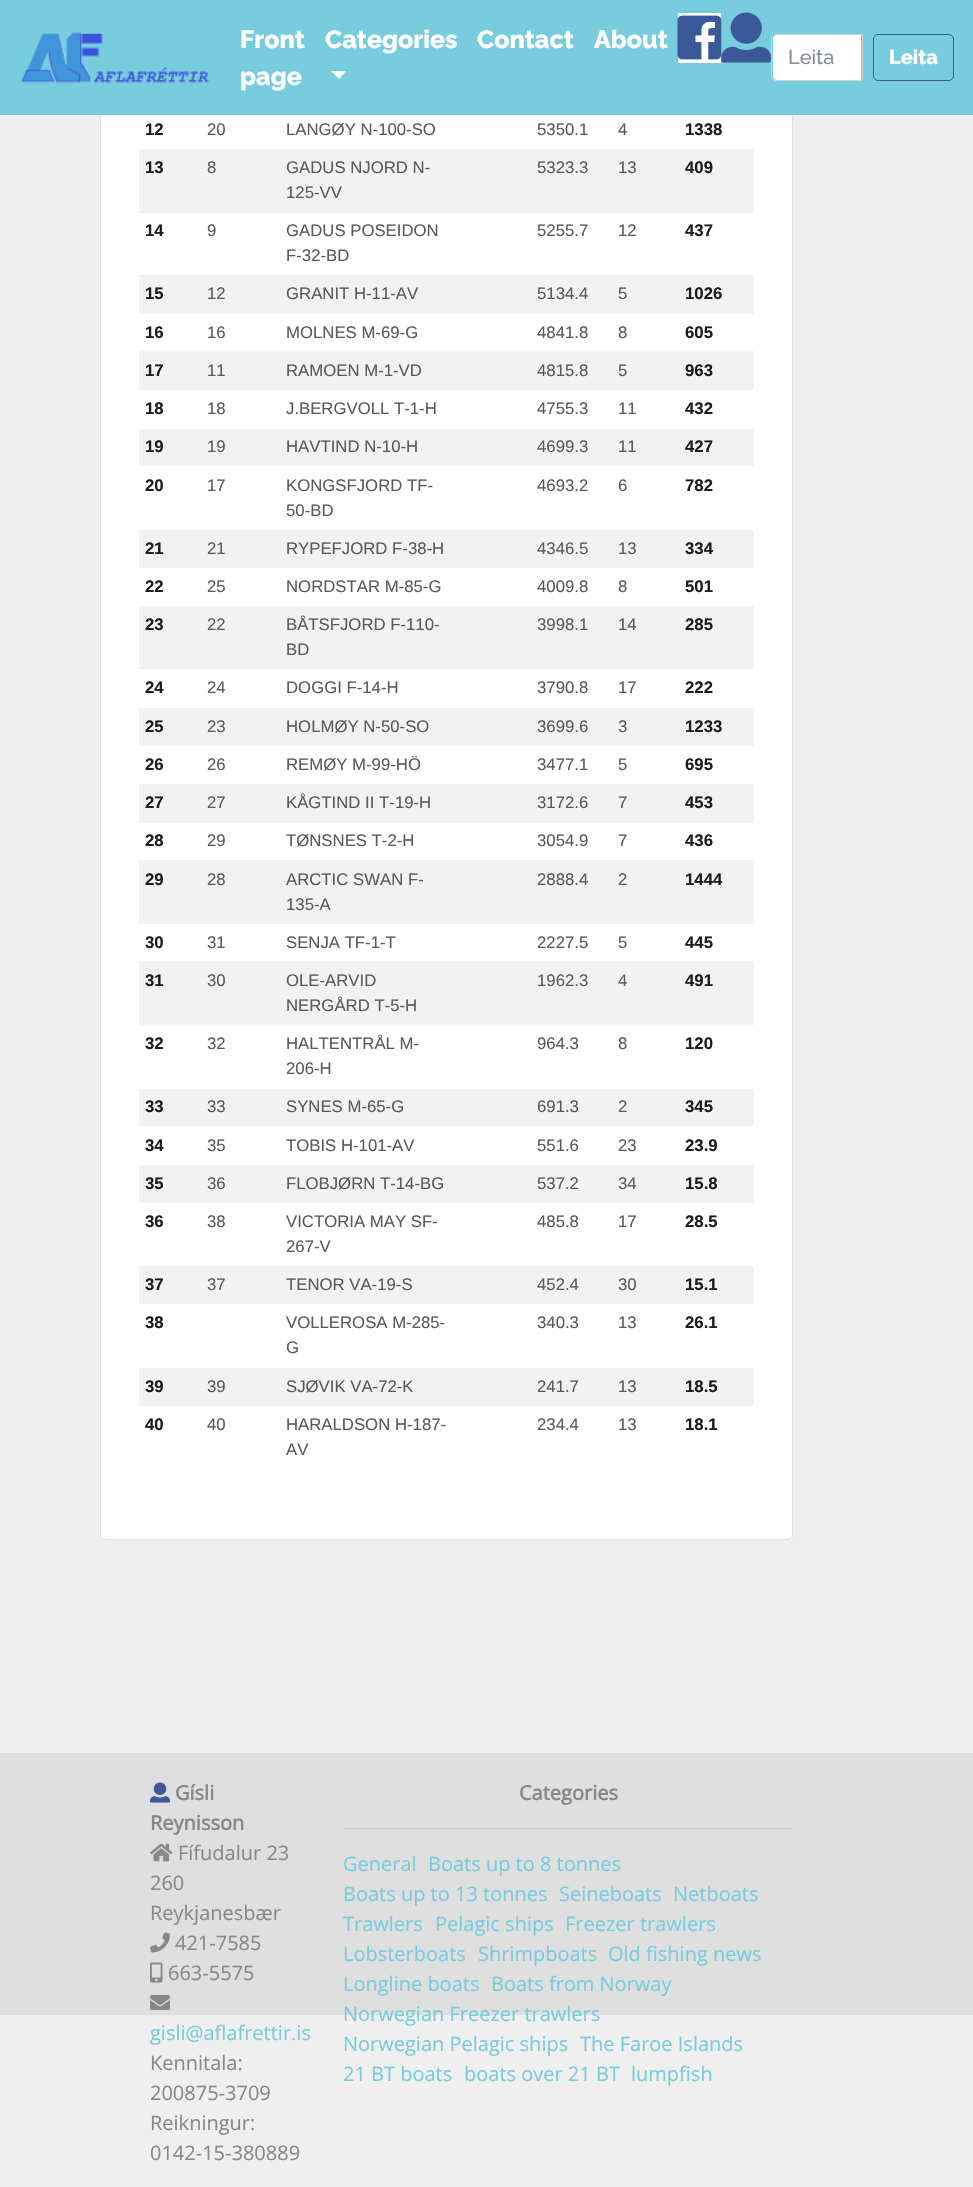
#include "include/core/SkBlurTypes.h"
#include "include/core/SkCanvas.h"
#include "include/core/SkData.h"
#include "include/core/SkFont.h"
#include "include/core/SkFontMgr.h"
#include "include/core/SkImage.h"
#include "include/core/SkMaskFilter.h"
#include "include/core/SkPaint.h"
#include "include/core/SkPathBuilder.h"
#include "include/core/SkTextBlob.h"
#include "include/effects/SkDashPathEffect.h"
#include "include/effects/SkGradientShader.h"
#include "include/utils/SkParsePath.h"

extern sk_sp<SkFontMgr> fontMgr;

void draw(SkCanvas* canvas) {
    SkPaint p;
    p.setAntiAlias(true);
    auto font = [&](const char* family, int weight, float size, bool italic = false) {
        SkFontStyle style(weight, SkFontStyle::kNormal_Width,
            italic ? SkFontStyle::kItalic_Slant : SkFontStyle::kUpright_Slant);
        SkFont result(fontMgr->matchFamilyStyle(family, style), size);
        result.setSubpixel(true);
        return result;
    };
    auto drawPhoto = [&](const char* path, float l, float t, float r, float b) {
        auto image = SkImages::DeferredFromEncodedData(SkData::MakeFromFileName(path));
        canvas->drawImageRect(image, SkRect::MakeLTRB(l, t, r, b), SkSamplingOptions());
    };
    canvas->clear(0xFFEFEFEF);
    p.setColor(0xFFFFFFFF);
    canvas->drawRoundRect(SkRect::MakeLTRB(100, -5, 793, 1540), 5, 5, p);
    p.setStyle(SkPaint::kStroke_Style);
    p.setStrokeWidth(1);
    p.setColor(0x1F000000);
    canvas->drawRoundRect(SkRect::MakeLTRB(100.5f, -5.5f, 792.5f, 1539.5f), 4.5f, 4.5f, p);
    p.setStyle(SkPaint::kFill_Style);
    p.setColor(0xFF77CCDD);
    canvas->drawRect(SkRect::MakeLTRB(0, 0, 973, 115), p);
    drawPhoto("media/1.png", 21, 32, 209, 83);
    auto font1 = font("Raleway", 800, 25);
    p.setColor(0xFFFFFFFF);
    {
        const struct { const char* s; float x, y; } items[] = {
            {"Front", 240, 48},
            {"page", 240, 85},
            {"Categories", 325, 48},
        };
        for (auto [s, x, y] : items) {
            canvas->drawString(s, x, y, font1, p);
        }
    }
    canvas->drawPath(SkPathBuilder().moveTo(331, 71).lineTo(346, 71).lineTo(339, 79).close().detach(), p);
    canvas->drawString("Contact", 477, 48, font1, p);
    canvas->drawString("About", 594, 48, font1, p);
    canvas->drawRect(SkRect::MakeLTRB(678, 13, 721, 63), p);
    drawPhoto("media/2.png", 677, 15, 722, 60);
    drawPhoto("media/3.png", 721, 12, 771, 63);
    canvas->drawPath(SkPathBuilder().moveTo(777, 35).lineTo(861, 35).lineTo(861, 80).lineTo(777, 80).cubicTo(775, 80, 773, 78, 773, 76).lineTo(773, 39).cubicTo(773, 37, 775, 35, 777, 35).close().detach(), p);
    p.setStyle(SkPaint::kStroke_Style);
    p.setColor(0xFFCED4DA);
    canvas->drawPath(SkPathBuilder().moveTo(776, 34.5f).lineTo(862.5f, 34.5f).lineTo(862.5f, 80.5f).lineTo(776, 80.5f).cubicTo(773.5f, 80.5f, 771.5f, 78.5f, 771.5f, 76).lineTo(771.5f, 39).cubicTo(771.5f, 36.5f, 773.5f, 34.5f, 776, 34.5f).close().detach(), p);
    auto font2 = font("Raleway", 500, 20);
    p.setStyle(SkPaint::kFill_Style);
    p.setColor(0xFF868E96);
    canvas->drawString("Leita", 788, 64, font2, p);
    p.setStyle(SkPaint::kStroke_Style);
    p.setColor(0xFF3B5998);
    canvas->drawRoundRect(SkRect::MakeLTRB(873.5f, 34.5f, 953.5f, 80.5f), 4.5f, 4.5f, p);
    auto font3 = font("Raleway", 800, 20);
    p.setStyle(SkPaint::kFill_Style);
    p.setColor(0xFFFFFFFF);
    canvas->drawString("Leita", 889, 64, font3, p);
    auto font4 = font("Liberation Sans", 700, 16.75f);
    p.setColor(0xFF1C1C1C);
    canvas->drawString("12", 145, 135, font4, p);
    auto font5 = font("Liberation Sans", 400, 16.75f);
    p.setColor(0xFF5A5A5A);
    {
        const struct { const char* s; float x, y; } items[] = {
            {"20", 207, 135},
            {"LANGØY N-100-SO", 286, 135},
            {"5350.1", 537, 135},
            {"4", 618, 135},
        };
        for (auto [s, x, y] : items) {
            canvas->drawString(s, x, y, font5, p);
        }
    }
    p.setColor(0xFF1C1C1C);
    canvas->drawString("1338", 685, 135, font4, p);
    p.setColor(0xFFF2F2F2);
    canvas->drawRect(SkRect::MakeLTRB(139, 149, 754, 213), p);
    p.setColor(0xFF1C1C1C);
    canvas->drawString("13", 145, 173, font4, p);
    p.setColor(0xFF5A5A5A);
    {
        const struct { const char* s; float x, y; } items[] = {
            {"8", 207, 173},
            {"GADUS NJORD N-", 286, 173},
            {"125-VV", 286, 198},
            {"5323.3", 537, 173},
            {"13", 618, 173},
        };
        for (auto [s, x, y] : items) {
            canvas->drawString(s, x, y, font5, p);
        }
    }
    p.setColor(0xFF1C1C1C);
    canvas->drawString("409", 685, 173, font4, p);
    canvas->drawString("14", 145, 236, font4, p);
    p.setColor(0xFF5A5A5A);
    {
        const struct { const char* s; float x, y; } items[] = {
            {"9", 207, 236},
            {"GADUS POSEIDON", 286, 236},
            {"F-32-BD", 286, 261},
            {"5255.7", 537, 236},
            {"12", 618, 236},
        };
        for (auto [s, x, y] : items) {
            canvas->drawString(s, x, y, font5, p);
        }
    }
    p.setColor(0xFF1C1C1C);
    canvas->drawString("437", 685, 236, font4, p);
    p.setColor(0xFFF2F2F2);
    canvas->drawRect(SkRect::MakeLTRB(139, 275, 754, 314), p);
    p.setColor(0xFF1C1C1C);
    canvas->drawString("15", 145, 299, font4, p);
    p.setColor(0xFF5A5A5A);
    {
        const struct { const char* s; float x, y; } items[] = {
            {"12", 207, 299},
            {"GRANIT H-11-AV", 286, 299},
            {"5134.4", 537, 299},
            {"5", 618, 299},
        };
        for (auto [s, x, y] : items) {
            canvas->drawString(s, x, y, font5, p);
        }
    }
    p.setColor(0xFF1C1C1C);
    canvas->drawString("1026", 685, 299, font4, p);
    canvas->drawString("16", 145, 338, font4, p);
    p.setColor(0xFF5A5A5A);
    {
        const struct { const char* s; float x, y; } items[] = {
            {"16", 207, 338},
            {"MOLNES M-69-G", 286, 338},
            {"4841.8", 537, 338},
            {"8", 618, 338},
        };
        for (auto [s, x, y] : items) {
            canvas->drawString(s, x, y, font5, p);
        }
    }
    p.setColor(0xFF1C1C1C);
    canvas->drawString("605", 685, 338, font4, p);
    p.setColor(0xFFF2F2F2);
    canvas->drawRect(SkRect::MakeLTRB(139, 351, 754, 390), p);
    p.setColor(0xFF1C1C1C);
    canvas->drawString("17", 145, 376, font4, p);
    p.setColor(0xFF5A5A5A);
    {
        const struct { const char* s; float x, y; } items[] = {
            {"11", 207, 376},
            {"RAMOEN M-1-VD", 286, 376},
            {"4815.8", 537, 376},
            {"5", 618, 376},
        };
        for (auto [s, x, y] : items) {
            canvas->drawString(s, x, y, font5, p);
        }
    }
    p.setColor(0xFF1C1C1C);
    canvas->drawString("963", 685, 376, font4, p);
    canvas->drawString("18", 145, 414, font4, p);
    p.setColor(0xFF5A5A5A);
    {
        const struct { const char* s; float x, y; } items[] = {
            {"18", 207, 414},
            {"J.BERGVOLL T-1-H", 286, 414},
            {"4755.3", 537, 414},
            {"11", 618, 414},
        };
        for (auto [s, x, y] : items) {
            canvas->drawString(s, x, y, font5, p);
        }
    }
    p.setColor(0xFF1C1C1C);
    canvas->drawString("432", 685, 414, font4, p);
    p.setColor(0xFFF2F2F2);
    canvas->drawRect(SkRect::MakeLTRB(139, 429, 754, 466), p);
    p.setColor(0xFF1C1C1C);
    canvas->drawString("19", 145, 452, font4, p);
    p.setColor(0xFF5A5A5A);
    {
        const struct { const char* s; float x, y; } items[] = {
            {"19", 207, 452},
            {"HAVTIND N-10-H", 286, 452},
            {"4699.3", 537, 452},
            {"11", 618, 452},
        };
        for (auto [s, x, y] : items) {
            canvas->drawString(s, x, y, font5, p);
        }
    }
    p.setColor(0xFF1C1C1C);
    canvas->drawString("427", 685, 452, font4, p);
    canvas->drawString("20", 145, 491, font4, p);
    p.setColor(0xFF5A5A5A);
    {
        const struct { const char* s; float x, y; } items[] = {
            {"17", 207, 491},
            {"KONGSFJORD TF-", 286, 491},
            {"50-BD", 286, 516},
            {"4693.2", 537, 491},
            {"6", 618, 491},
        };
        for (auto [s, x, y] : items) {
            canvas->drawString(s, x, y, font5, p);
        }
    }
    p.setColor(0xFF1C1C1C);
    canvas->drawString("782", 685, 491, font4, p);
    p.setColor(0xFFF2F2F2);
    canvas->drawRect(SkRect::MakeLTRB(139, 530, 754, 568), p);
    p.setColor(0xFF1C1C1C);
    canvas->drawString("21", 145, 554, font4, p);
    p.setColor(0xFF5A5A5A);
    {
        const struct { const char* s; float x, y; } items[] = {
            {"21", 207, 554},
            {"RYPEFJORD F-38-H", 286, 554},
            {"4346.5", 537, 554},
            {"13", 618, 554},
        };
        for (auto [s, x, y] : items) {
            canvas->drawString(s, x, y, font5, p);
        }
    }
    p.setColor(0xFF1C1C1C);
    canvas->drawString("334", 685, 554, font4, p);
    canvas->drawString("22", 145, 592, font4, p);
    p.setColor(0xFF5A5A5A);
    {
        const struct { const char* s; float x, y; } items[] = {
            {"25", 207, 592},
            {"NORDSTAR M-85-G", 286, 592},
            {"4009.8", 537, 592},
            {"8", 618, 592},
        };
        for (auto [s, x, y] : items) {
            canvas->drawString(s, x, y, font5, p);
        }
    }
    p.setColor(0xFF1C1C1C);
    canvas->drawString("501", 685, 592, font4, p);
    p.setColor(0xFFF2F2F2);
    canvas->drawRect(SkRect::MakeLTRB(139, 606, 754, 669), p);
    p.setColor(0xFF1C1C1C);
    canvas->drawString("23", 145, 630, font4, p);
    p.setColor(0xFF5A5A5A);
    {
        const struct { const char* s; float x, y; } items[] = {
            {"22", 207, 630},
            {"BÅTSFJORD F-110-", 286, 630},
            {"BD", 286, 655},
            {"3998.1", 537, 630},
            {"14", 618, 630},
        };
        for (auto [s, x, y] : items) {
            canvas->drawString(s, x, y, font5, p);
        }
    }
    p.setColor(0xFF1C1C1C);
    canvas->drawString("285", 685, 630, font4, p);
    canvas->drawString("24", 145, 693, font4, p);
    p.setColor(0xFF5A5A5A);
    {
        const struct { const char* s; float x, y; } items[] = {
            {"24", 207, 693},
            {"DOGGI F-14-H", 286, 693},
            {"3790.8", 537, 693},
            {"17", 618, 693},
        };
        for (auto [s, x, y] : items) {
            canvas->drawString(s, x, y, font5, p);
        }
    }
    p.setColor(0xFF1C1C1C);
    canvas->drawString("222", 685, 693, font4, p);
    p.setColor(0xFFF2F2F2);
    canvas->drawRect(SkRect::MakeLTRB(139, 708, 754, 746), p);
    p.setColor(0xFF1C1C1C);
    canvas->drawString("25", 145, 732, font4, p);
    p.setColor(0xFF5A5A5A);
    {
        const struct { const char* s; float x, y; } items[] = {
            {"23", 207, 732},
            {"HOLMØY N-50-SO", 286, 732},
            {"3699.6", 537, 732},
            {"3", 618, 732},
        };
        for (auto [s, x, y] : items) {
            canvas->drawString(s, x, y, font5, p);
        }
    }
    p.setColor(0xFF1C1C1C);
    canvas->drawString("1233", 685, 732, font4, p);
    canvas->drawString("26", 145, 770, font4, p);
    p.setColor(0xFF5A5A5A);
    {
        const struct { const char* s; float x, y; } items[] = {
            {"26", 207, 770},
            {"REMØY M-99-HÖ", 286, 770},
            {"3477.1", 537, 770},
            {"5", 618, 770},
        };
        for (auto [s, x, y] : items) {
            canvas->drawString(s, x, y, font5, p);
        }
    }
    p.setColor(0xFF1C1C1C);
    canvas->drawString("695", 685, 770, font4, p);
    p.setColor(0xFFF2F2F2);
    canvas->drawRect(SkRect::MakeLTRB(139, 784, 754, 823), p);
    p.setColor(0xFF1C1C1C);
    canvas->drawString("27", 145, 808, font4, p);
    p.setColor(0xFF5A5A5A);
    {
        const struct { const char* s; float x, y; } items[] = {
            {"27", 207, 808},
            {"KÅGTIND II T-19-H", 286, 808},
            {"3172.6", 537, 808},
            {"7", 618, 808},
        };
        for (auto [s, x, y] : items) {
            canvas->drawString(s, x, y, font5, p);
        }
    }
    p.setColor(0xFF1C1C1C);
    canvas->drawString("453", 685, 808, font4, p);
    canvas->drawString("28", 145, 846, font4, p);
    p.setColor(0xFF5A5A5A);
    {
        const struct { const char* s; float x, y; } items[] = {
            {"29", 207, 846},
            {"TØNSNES T-2-H", 286, 846},
            {"3054.9", 537, 846},
            {"7", 618, 846},
        };
        for (auto [s, x, y] : items) {
            canvas->drawString(s, x, y, font5, p);
        }
    }
    p.setColor(0xFF1C1C1C);
    canvas->drawString("436", 685, 846, font4, p);
    p.setColor(0xFFF2F2F2);
    canvas->drawRect(SkRect::MakeLTRB(139, 860, 754, 924), p);
    p.setColor(0xFF1C1C1C);
    canvas->drawString("29", 145, 885, font4, p);
    p.setColor(0xFF5A5A5A);
    {
        const struct { const char* s; float x, y; } items[] = {
            {"28", 207, 885},
            {"ARCTIC SWAN F-", 286, 885},
            {"135-A", 286, 910},
            {"2888.4", 537, 885},
            {"2", 618, 885},
        };
        for (auto [s, x, y] : items) {
            canvas->drawString(s, x, y, font5, p);
        }
    }
    p.setColor(0xFF1C1C1C);
    canvas->drawString("1444", 685, 885, font4, p);
    canvas->drawString("30", 145, 948, font4, p);
    p.setColor(0xFF5A5A5A);
    {
        const struct { const char* s; float x, y; } items[] = {
            {"31", 207, 948},
            {"SENJA TF-1-T", 286, 948},
            {"2227.5", 537, 948},
            {"5", 618, 948},
        };
        for (auto [s, x, y] : items) {
            canvas->drawString(s, x, y, font5, p);
        }
    }
    p.setColor(0xFF1C1C1C);
    canvas->drawString("445", 685, 948, font4, p);
    p.setColor(0xFFF2F2F2);
    canvas->drawRect(SkRect::MakeLTRB(139, 961, 754, 1025), p);
    p.setColor(0xFF1C1C1C);
    canvas->drawString("31", 145, 986, font4, p);
    p.setColor(0xFF5A5A5A);
    {
        const struct { const char* s; float x, y; } items[] = {
            {"30", 207, 986},
            {"OLE-ARVID", 286, 986},
            {"NERGÅRD T-5-H", 286, 1011},
            {"1962.3", 537, 986},
            {"4", 618, 986},
        };
        for (auto [s, x, y] : items) {
            canvas->drawString(s, x, y, font5, p);
        }
    }
    p.setColor(0xFF1C1C1C);
    canvas->drawString("491", 685, 986, font4, p);
    canvas->drawString("32", 145, 1049, font4, p);
    p.setColor(0xFF5A5A5A);
    {
        const struct { const char* s; float x, y; } items[] = {
            {"32", 207, 1049},
            {"HALTENTRÅL M-", 286, 1049},
            {"206-H", 286, 1074},
            {"964.3", 537, 1049},
            {"8", 618, 1049},
        };
        for (auto [s, x, y] : items) {
            canvas->drawString(s, x, y, font5, p);
        }
    }
    p.setColor(0xFF1C1C1C);
    canvas->drawString("120", 685, 1049, font4, p);
    p.setColor(0xFFF2F2F2);
    canvas->drawRect(SkRect::MakeLTRB(139, 1089, 754, 1126), p);
    p.setColor(0xFF1C1C1C);
    canvas->drawString("33", 145, 1112, font4, p);
    p.setColor(0xFF5A5A5A);
    {
        const struct { const char* s; float x, y; } items[] = {
            {"33", 207, 1112},
            {"SYNES M-65-G", 286, 1112},
            {"691.3", 537, 1112},
            {"2", 618, 1112},
        };
        for (auto [s, x, y] : items) {
            canvas->drawString(s, x, y, font5, p);
        }
    }
    p.setColor(0xFF1C1C1C);
    canvas->drawString("345", 685, 1112, font4, p);
    canvas->drawString("34", 145, 1151, font4, p);
    p.setColor(0xFF5A5A5A);
    {
        const struct { const char* s; float x, y; } items[] = {
            {"35", 207, 1151},
            {"TOBIS H-101-AV", 286, 1151},
            {"551.6", 537, 1151},
            {"23", 618, 1151},
        };
        for (auto [s, x, y] : items) {
            canvas->drawString(s, x, y, font5, p);
        }
    }
    p.setColor(0xFF1C1C1C);
    canvas->drawString("23.9", 685, 1151, font4, p);
    p.setColor(0xFFF2F2F2);
    canvas->drawRect(SkRect::MakeLTRB(139, 1165, 754, 1203), p);
    p.setColor(0xFF1C1C1C);
    canvas->drawString("35", 145, 1189, font4, p);
    p.setColor(0xFF5A5A5A);
    {
        const struct { const char* s; float x, y; } items[] = {
            {"36", 207, 1189},
            {"FLOBJØRN T-14-BG", 286, 1189},
            {"537.2", 537, 1189},
            {"34", 618, 1189},
        };
        for (auto [s, x, y] : items) {
            canvas->drawString(s, x, y, font5, p);
        }
    }
    p.setColor(0xFF1C1C1C);
    canvas->drawString("15.8", 685, 1189, font4, p);
    canvas->drawString("36", 145, 1227, font4, p);
    p.setColor(0xFF5A5A5A);
    {
        const struct { const char* s; float x, y; } items[] = {
            {"38", 207, 1227},
            {"VICTORIA MAY SF-", 286, 1227},
            {"267-V", 286, 1252},
            {"485.8", 537, 1227},
            {"17", 618, 1227},
        };
        for (auto [s, x, y] : items) {
            canvas->drawString(s, x, y, font5, p);
        }
    }
    p.setColor(0xFF1C1C1C);
    canvas->drawString("28.5", 685, 1227, font4, p);
    p.setColor(0xFFF2F2F2);
    canvas->drawRect(SkRect::MakeLTRB(139, 1266, 754, 1304), p);
    p.setColor(0xFF1C1C1C);
    canvas->drawString("37", 145, 1290, font4, p);
    p.setColor(0xFF5A5A5A);
    {
        const struct { const char* s; float x, y; } items[] = {
            {"37", 207, 1290},
            {"TENOR VA-19-S", 286, 1290},
            {"452.4", 537, 1290},
            {"30", 618, 1290},
        };
        for (auto [s, x, y] : items) {
            canvas->drawString(s, x, y, font5, p);
        }
    }
    p.setColor(0xFF1C1C1C);
    canvas->drawString("15.1", 685, 1290, font4, p);
    canvas->drawString("38", 145, 1328, font4, p);
    p.setColor(0xFF5A5A5A);
    {
        const struct { const char* s; float x, y; } items[] = {
            {"VOLLEROSA M-285-", 286, 1328},
            {"G", 286, 1353},
            {"340.3", 537, 1328},
            {"13", 618, 1328},
        };
        for (auto [s, x, y] : items) {
            canvas->drawString(s, x, y, font5, p);
        }
    }
    p.setColor(0xFF1C1C1C);
    canvas->drawString("26.1", 685, 1328, font4, p);
    p.setColor(0xFFF2F2F2);
    canvas->drawRect(SkRect::MakeLTRB(139, 1368, 754, 1406), p);
    p.setColor(0xFF1C1C1C);
    canvas->drawString("39", 145, 1392, font4, p);
    p.setColor(0xFF5A5A5A);
    {
        const struct { const char* s; float x, y; } items[] = {
            {"39", 207, 1392},
            {"SJØVIK VA-72-K", 286, 1392},
            {"241.7", 537, 1392},
            {"13", 618, 1392},
        };
        for (auto [s, x, y] : items) {
            canvas->drawString(s, x, y, font5, p);
        }
    }
    p.setColor(0xFF1C1C1C);
    canvas->drawString("18.5", 685, 1392, font4, p);
    canvas->drawString("40", 145, 1430, font4, p);
    p.setColor(0xFF5A5A5A);
    {
        const struct { const char* s; float x, y; } items[] = {
            {"40", 207, 1430},
            {"HARALDSON H-187-", 286, 1430},
            {"AV", 286, 1455},
            {"234.4", 537, 1430},
            {"13", 618, 1430},
        };
        for (auto [s, x, y] : items) {
            canvas->drawString(s, x, y, font5, p);
        }
    }
    p.setColor(0xFF1C1C1C);
    canvas->drawString("18.1", 685, 1430, font4, p);
    p.setColor(0xFFDFDFDF);
    canvas->drawRect(SkRect::MakeLTRB(0, 1753, 973, 2015), p);
    drawPhoto("media/4.png", 150, 1782, 170, 1803);
    auto font6 = font("Open Sans", 700, 20);
    p.setColor(0xFF888888);
    canvas->drawString("Gísli", 175, 1800, font6, p);
    canvas->drawString("Reynisson", 150, 1830, font6, p);
    drawPhoto("media/5.png", 150, 1843, 173, 1862);
    auto font7 = font("Open Sans", 400, 20);
    {
        const struct { const char* s; float x, y; } items[] = {
            {"Fífudalur 23", 178, 1860},
            {"260", 150, 1890},
            {"Reykjanesbær", 150, 1920},
        };
        for (auto [s, x, y] : items) {
            canvas->drawString(s, x, y, font7, p);
        }
    }
    drawPhoto("media/6.png", 150, 1932, 170, 1953);
    canvas->drawString("421-7585", 175, 1950, font7, p);
    drawPhoto("media/7.png", 150, 1962, 163, 1983);
    canvas->drawString("663-5575", 168, 1980, font7, p);
    drawPhoto("media/8.png", 150, 1995, 170, 2010);
    p.setColor(0xFF77CCDD);
    canvas->drawString("gisli@aflafrettir.is", 150, 2040, font7, p);
    p.setColor(0xFF888888);
    {
        const struct { const char* s; float x, y; } items[] = {
            {"Kennitala:", 150, 2070},
            {"200875-3709", 150, 2100},
            {"Reikningur:", 150, 2130},
            {"0142-15-380889", 150, 2160},
        };
        for (auto [s, x, y] : items) {
            canvas->drawString(s, x, y, font7, p);
        }
    }
    canvas->drawString("Categories", 519, 1800, font6, p);
    p.setColor(0xFFC9C9C9);
    canvas->drawRect(SkRect::MakeLTRB(344, 1828, 793, 1829), p);
    p.setColor(0xFF77CCDD);
    {
        const struct { const char* s; float x, y; } items[] = {
            {"General", 343, 1871},
            {"Boats up to 8 tonnes", 428, 1871},
            {"Boats up to 13 tonnes", 343, 1901},
            {"Seineboats", 559, 1901},
            {"Netboats", 673, 1901},
            {"Trawlers", 343, 1931},
            {"Pelagic ships", 435, 1931},
            {"Freezer trawlers", 565, 1931},
            {"Lobsterboats", 343, 1961},
            {"Shrimpboats", 478, 1961},
            {"Old fishing news", 608, 1961},
            {"Longline boats", 343, 1991},
            {"Boats from Norway", 491, 1991},
            {"Norwegian Freezer trawlers", 343, 2021},
            {"Norwegian Pelagic ships", 343, 2051},
            {"The Faroe Islands", 580, 2051},
            {"21 BT boats", 343, 2081},
            {"boats over 21 BT", 464, 2081},
            {"lumpfish", 631, 2081},
        };
        for (auto [s, x, y] : items) {
            canvas->drawString(s, x, y, font7, p);
        }
    }
}
